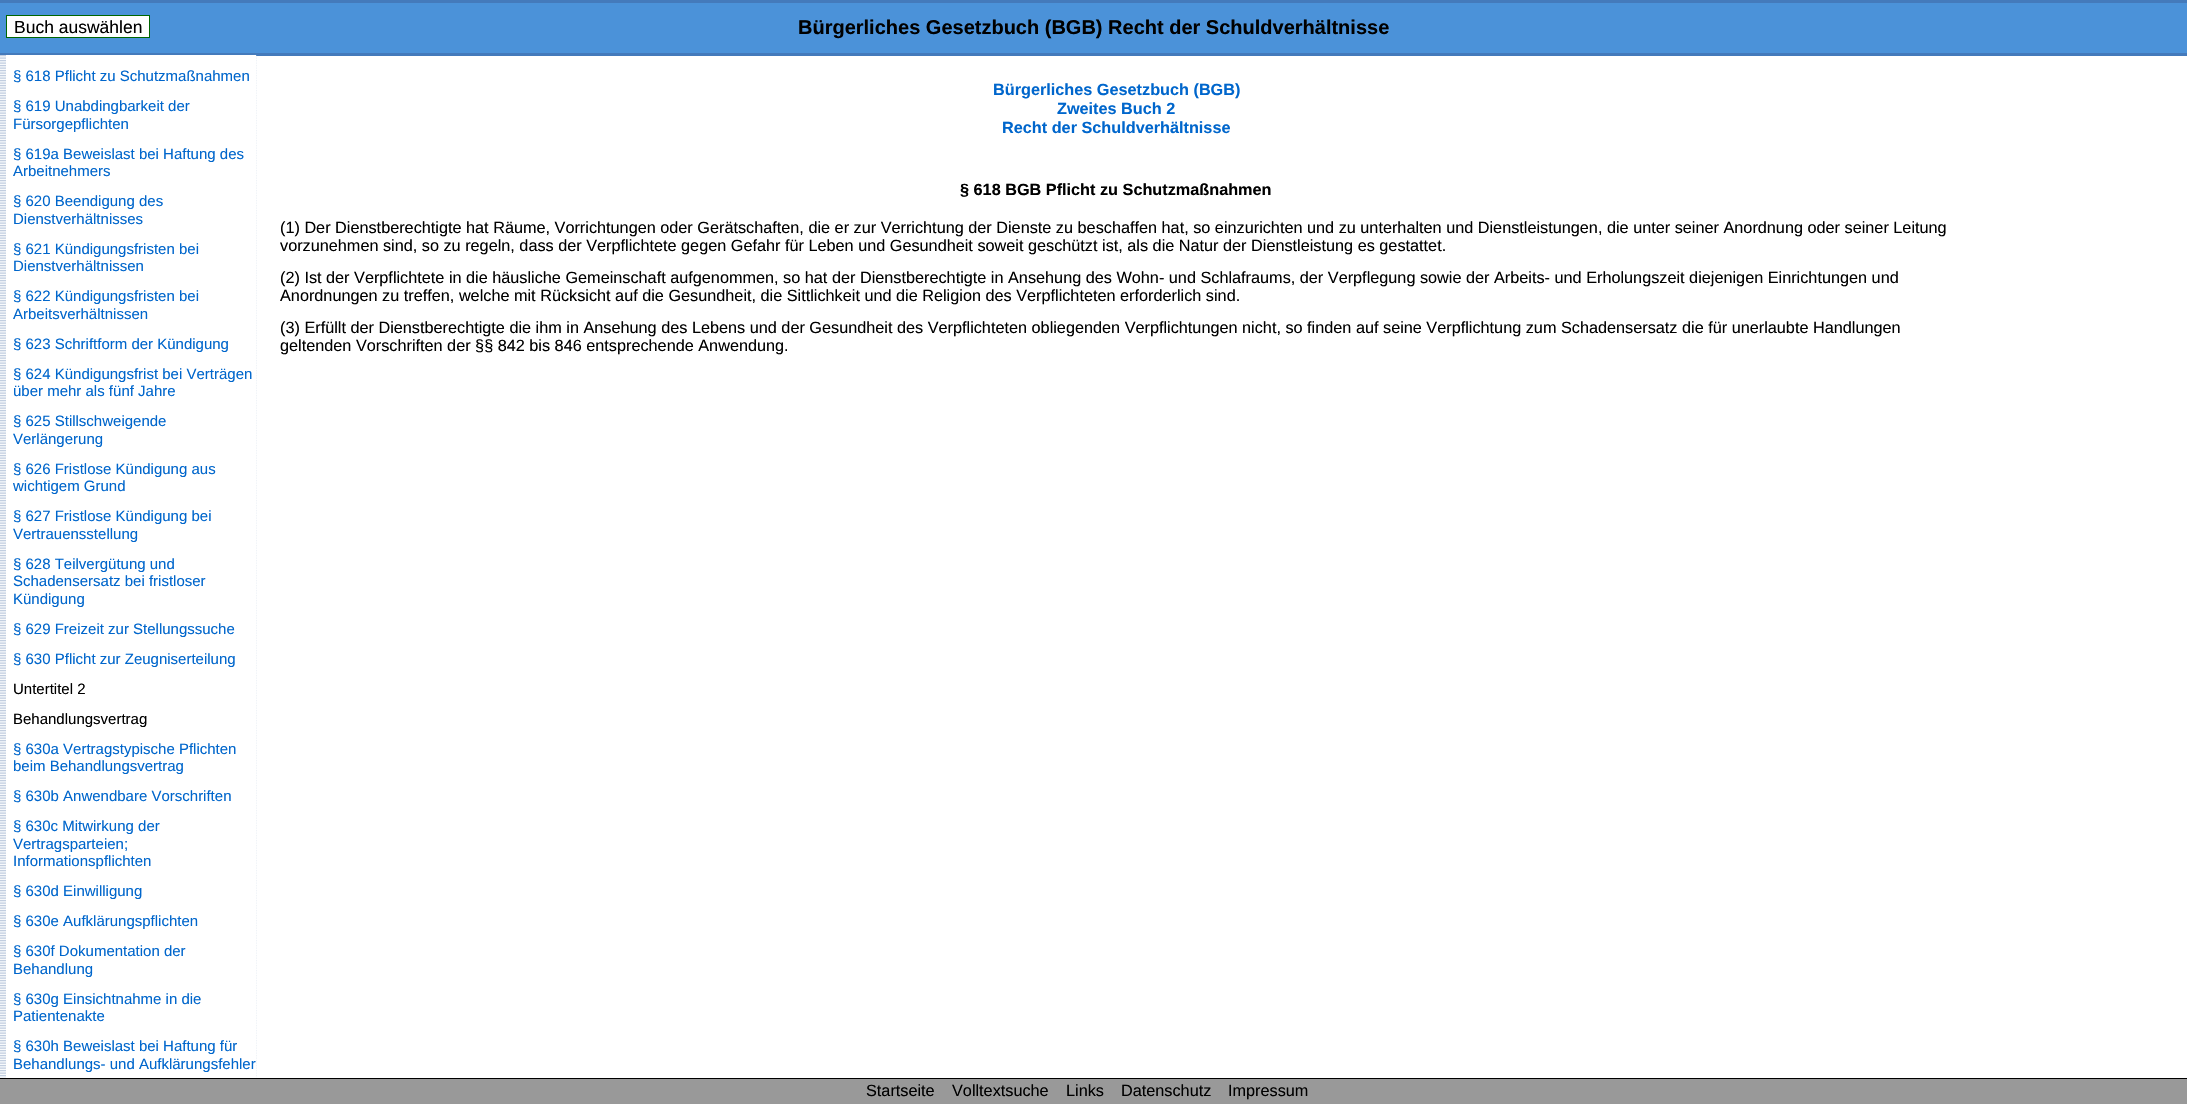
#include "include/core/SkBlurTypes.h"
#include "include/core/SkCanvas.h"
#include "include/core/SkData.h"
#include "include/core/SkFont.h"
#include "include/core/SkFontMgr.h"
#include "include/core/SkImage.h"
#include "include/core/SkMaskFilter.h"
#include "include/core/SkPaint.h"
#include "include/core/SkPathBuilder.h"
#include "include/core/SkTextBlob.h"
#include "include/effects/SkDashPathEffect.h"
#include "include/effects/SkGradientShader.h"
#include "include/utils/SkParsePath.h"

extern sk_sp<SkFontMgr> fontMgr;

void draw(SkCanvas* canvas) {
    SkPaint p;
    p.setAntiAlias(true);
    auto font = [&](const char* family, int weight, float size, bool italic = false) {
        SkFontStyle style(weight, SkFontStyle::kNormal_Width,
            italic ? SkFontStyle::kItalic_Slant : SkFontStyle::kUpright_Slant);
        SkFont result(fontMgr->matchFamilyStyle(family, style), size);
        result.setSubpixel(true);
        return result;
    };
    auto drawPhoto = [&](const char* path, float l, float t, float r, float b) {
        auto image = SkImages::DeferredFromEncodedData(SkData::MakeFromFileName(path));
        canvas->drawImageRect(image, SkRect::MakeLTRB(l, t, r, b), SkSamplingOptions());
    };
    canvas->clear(0xFFFFFFFF);
    {
        const struct { float l, t, r, b; SkColor color; } items[] = {
            {0, 3, 2187, 53, 0xFF4B92D9},
            {0, 0, 2187, 3, 0xFF447ABB},
            {0, 53, 2187, 56, 0xFF447ABB},
        };
        for (auto [l, t, r, b, color] : items) {
            p.setColor(color);
            canvas->drawRect(SkRect::MakeLTRB(l, t, r, b), p);
        }
    }
    p.setColor(0xFFFFFFFF);
    canvas->drawRect(SkRect::MakeLTRB(6.5f, 15.5f, 149.5f, 37.5f), p);
    p.setStyle(SkPaint::kStroke_Style);
    p.setStrokeWidth(1);
    p.setColor(0xFF006600);
    canvas->drawRect(SkRect::MakeLTRB(6.5f, 15.5f, 149.5f, 37.5f), p);
    auto font1 = font("Liberation Sans", 400, 17.5f);
    p.setStyle(SkPaint::kFill_Style);
    p.setColor(0xFF000000);
    canvas->drawString("Buch auswählen", 14, 33, font1, p);
    auto font2 = font("Liberation Sans", 700, 20);
    canvas->drawString("Bürgerliches Gesetzbuch (BGB) Recht der Schuldverhältnisse", 798, 34, font2, p);
    drawPhoto("media/1.png", 0, 55, 257, 1078);
    p.setColor(0xFFFFFFFF);
    canvas->drawRect(SkRect::MakeLTRB(6, 55, 256, 1078), p);
    auto font3 = font("Liberation Sans", 400, 15);
    p.setColor(0xFF0066CC);
    {
        const struct { const char* s; float x, y; } items[] = {
            {"§ 618 Pflicht zu Schutzmaßnahmen", 13, 81},
            {"§ 619 Unabdingbarkeit der", 13, 111},
            {"Fürsorgepflichten", 13, 129},
            {"§ 619a Beweislast bei Haftung des", 13, 159},
            {"Arbeitnehmers", 13, 176},
            {"§ 620 Beendigung des", 13, 206},
            {"Dienstverhältnisses", 13, 224},
            {"§ 621 Kündigungsfristen bei", 13, 254},
            {"Dienstverhältnissen", 13, 271},
            {"§ 622 Kündigungsfristen bei", 13, 301},
            {"Arbeitsverhältnissen", 13, 319},
            {"§ 623 Schriftform der Kündigung", 13, 349},
            {"§ 624 Kündigungsfrist bei Verträgen", 13, 379},
            {"über mehr als fünf Jahre", 13, 396},
            {"§ 625 Stillschweigende", 13, 426},
            {"Verlängerung", 13, 444},
            {"§ 626 Fristlose Kündigung aus", 13, 474},
            {"wichtigem Grund", 13, 491},
            {"§ 627 Fristlose Kündigung bei", 13, 521},
            {"Vertrauensstellung", 13, 539},
            {"§ 628 Teilvergütung und", 13, 569},
            {"Schadensersatz bei fristloser", 13, 586},
            {"Kündigung", 13, 604},
            {"§ 629 Freizeit zur Stellungssuche", 13, 634},
            {"§ 630 Pflicht zur Zeugniserteilung", 13, 664},
        };
        for (auto [s, x, y] : items) {
            canvas->drawString(s, x, y, font3, p);
        }
    }
    p.setColor(0xFF000000);
    canvas->drawString("Untertitel 2", 13, 694, font3, p);
    canvas->drawString("Behandlungsvertrag", 13, 724, font3, p);
    p.setColor(0xFF0066CC);
    {
        const struct { const char* s; float x, y; } items[] = {
            {"§ 630a Vertragstypische Pflichten", 13, 754},
            {"beim Behandlungsvertrag", 13, 771},
            {"§ 630b Anwendbare Vorschriften", 13, 801},
            {"§ 630c Mitwirkung der", 13, 831},
            {"Vertragsparteien;", 13, 849},
            {"Informationspflichten", 13, 866},
            {"§ 630d Einwilligung", 13, 896},
            {"§ 630e Aufklärungspflichten", 13, 926},
            {"§ 630f Dokumentation der", 13, 956},
            {"Behandlung", 13, 974},
            {"§ 630g Einsichtnahme in die", 13, 1004},
            {"Patientenakte", 13, 1021},
            {"§ 630h Beweislast bei Haftung für", 13, 1051},
            {"Behandlungs- und Aufklärungsfehler", 13, 1069},
        };
        for (auto [s, x, y] : items) {
            canvas->drawString(s, x, y, font3, p);
        }
    }
    auto font4 = font("Liberation Sans", 700, 16.25f);
    {
        const struct { const char* s; float x, y; } items[] = {
            {"Bürgerliches Gesetzbuch (BGB)", 993, 95},
            {"Zweites Buch 2", 1057, 114},
            {"Recht der Schuldverhältnisse", 1002, 133},
        };
        for (auto [s, x, y] : items) {
            canvas->drawString(s, x, y, font4, p);
        }
    }
    p.setColor(0xFF000000);
    canvas->drawString("§ 618 BGB Pflicht zu Schutzmaßnahmen", 960, 195, font4, p);
    auto font5 = font("Liberation Sans", 400, 16.25f);
    {
        const struct { const char* s; float x, y; } items[] = {
            {"(1) Der Dienstberechtigte hat Räume, Vorrichtungen oder Gerätschaften, die er zur Verrichtung der Dienste zu beschaffen hat, so einzurichten und zu unterhalten und Dienstleistungen, die unter seiner Anordnung oder seiner Leitung", 280, 233},
            {"vorzunehmen sind, so zu regeln, dass der Verpflichtete gegen Gefahr für Leben und Gesundheit soweit geschützt ist, als die Natur der Dienstleistung es gestattet.", 280, 251},
            {"(2) Ist der Verpflichtete in die häusliche Gemeinschaft aufgenommen, so hat der Dienstberechtigte in Ansehung des Wohn- und Schlafraums, der Verpflegung sowie der Arbeits- und Erholungszeit diejenigen Einrichtungen und", 280, 283},
            {"Anordnungen zu treffen, welche mit Rücksicht auf die Gesundheit, die Sittlichkeit und die Religion des Verpflichteten erforderlich sind.", 280, 301},
            {"(3) Erfüllt der Dienstberechtigte die ihm in Ansehung des Lebens und der Gesundheit des Verpflichteten obliegenden Verpflichtungen nicht, so finden auf seine Verpflichtung zum Schadensersatz die für unerlaubte Handlungen", 280, 333},
            {"geltenden Vorschriften der §§ 842 bis 846 entsprechende Anwendung.", 280, 351},
        };
        for (auto [s, x, y] : items) {
            canvas->drawString(s, x, y, font5, p);
        }
    }
    p.setColor(0xFF999999);
    canvas->drawRect(SkRect::MakeLTRB(0, 1079, 2187, 1104), p);
    p.setColor(0xFF000000);
    canvas->drawRect(SkRect::MakeLTRB(0, 1078, 2187, 1079), p);
    {
        const struct { const char* s; float x, y; } items[] = {
            {"Startseite", 866, 1096},
            {"Volltextsuche", 952, 1096},
            {"Links", 1066, 1096},
            {"Datenschutz", 1121, 1096},
            {"Impressum", 1228, 1096},
        };
        for (auto [s, x, y] : items) {
            canvas->drawString(s, x, y, font5, p);
        }
    }
}
